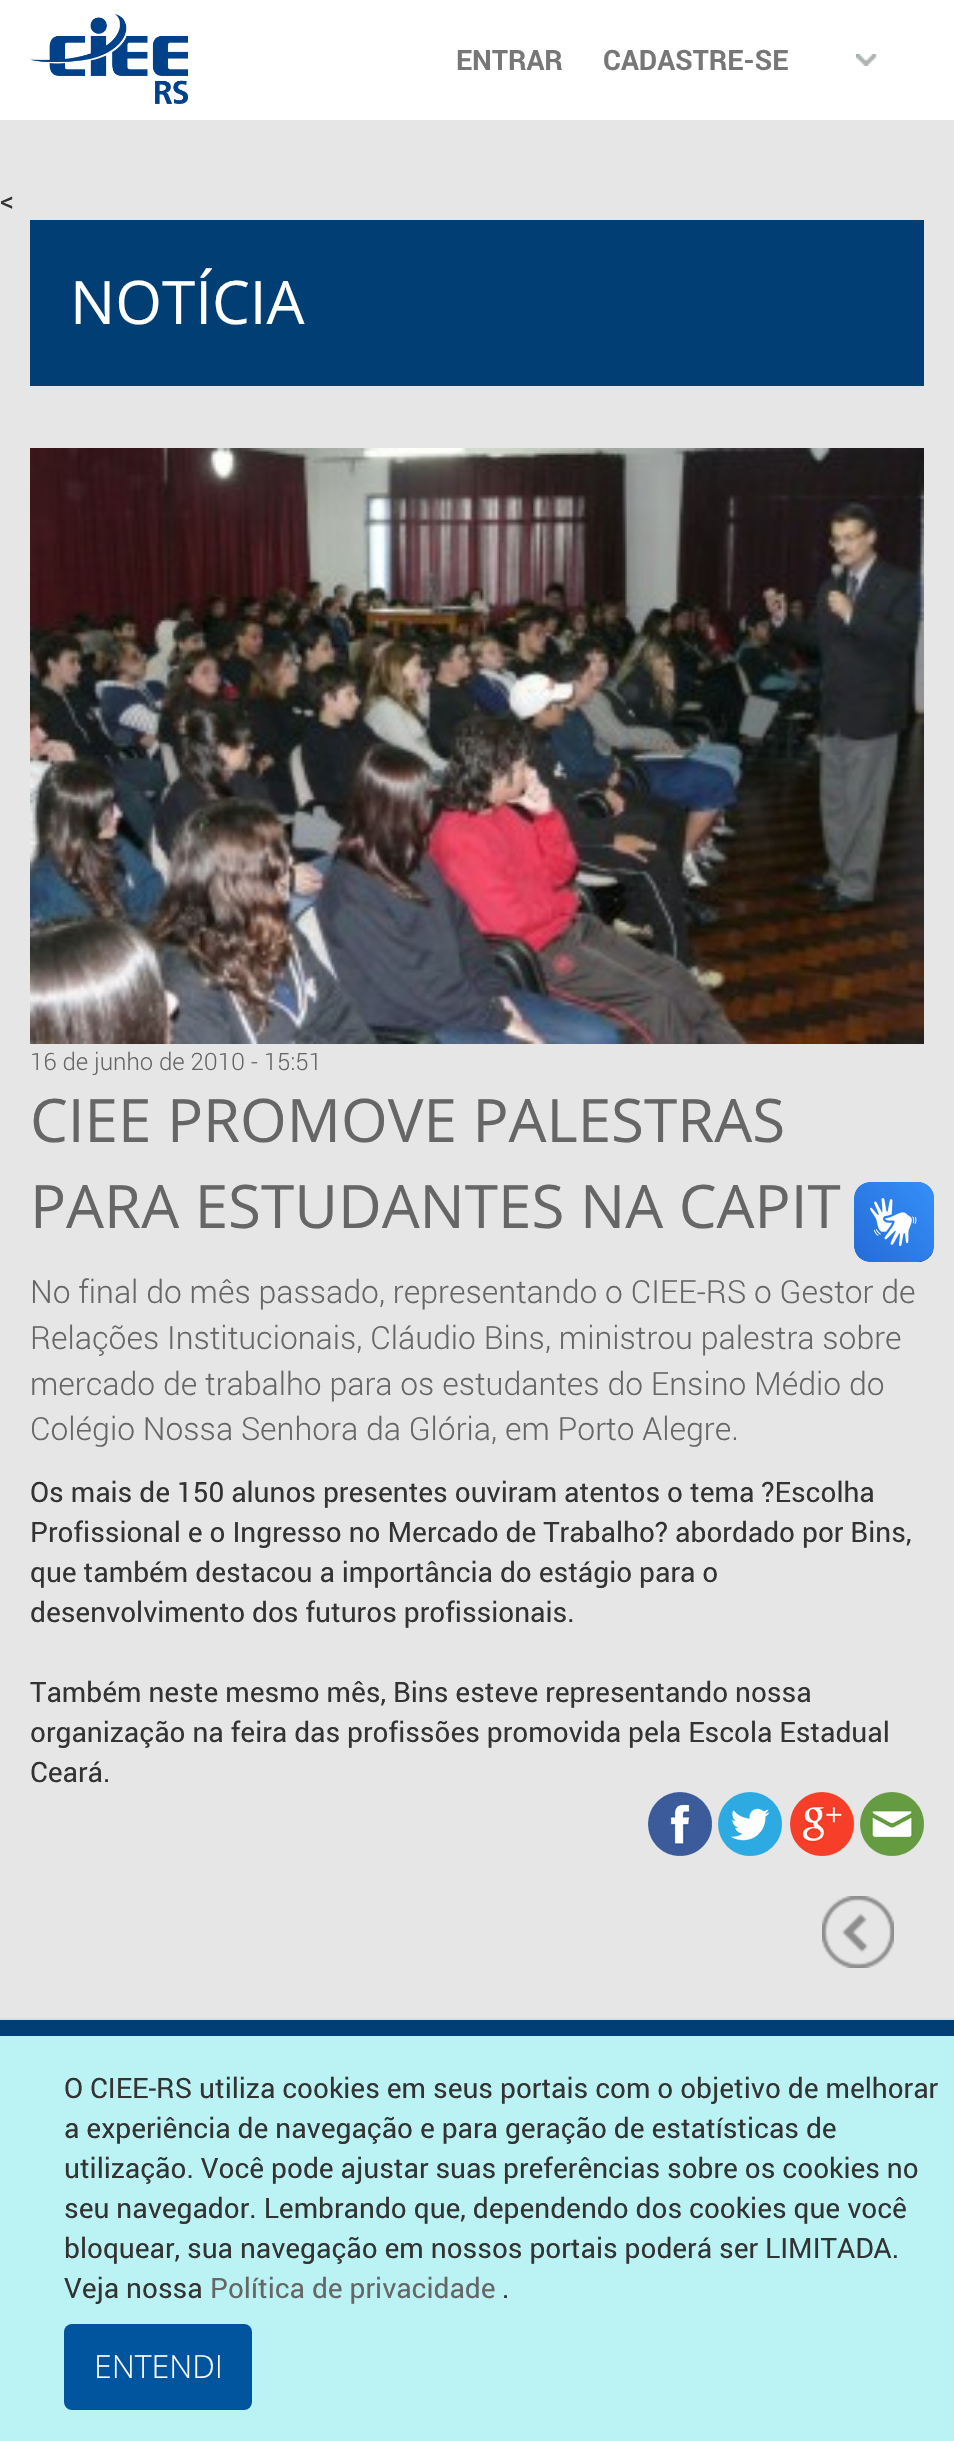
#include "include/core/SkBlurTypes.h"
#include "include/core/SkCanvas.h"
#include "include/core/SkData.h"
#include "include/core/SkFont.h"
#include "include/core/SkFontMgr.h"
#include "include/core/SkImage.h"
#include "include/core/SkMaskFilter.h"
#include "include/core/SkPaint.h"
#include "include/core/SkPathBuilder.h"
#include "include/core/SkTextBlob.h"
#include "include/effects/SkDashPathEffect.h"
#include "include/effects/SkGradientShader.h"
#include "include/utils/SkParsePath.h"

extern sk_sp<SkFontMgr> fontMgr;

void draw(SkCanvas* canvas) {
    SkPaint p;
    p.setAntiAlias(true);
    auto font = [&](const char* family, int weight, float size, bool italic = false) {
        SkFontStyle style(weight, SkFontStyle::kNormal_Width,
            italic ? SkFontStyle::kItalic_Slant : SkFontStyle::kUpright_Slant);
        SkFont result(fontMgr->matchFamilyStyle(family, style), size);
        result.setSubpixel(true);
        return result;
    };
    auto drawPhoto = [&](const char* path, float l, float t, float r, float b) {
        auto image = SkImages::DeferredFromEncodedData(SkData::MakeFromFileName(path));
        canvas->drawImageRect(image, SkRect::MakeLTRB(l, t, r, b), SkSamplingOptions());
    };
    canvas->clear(0xFFE6E6E6);
    p.setColor(0xFFFFFFFF);
    canvas->drawRect(SkRect::MakeLTRB(0, 0, 954, 120), p);
    drawPhoto("media/1.png", 30, 14, 188, 104);
    auto font1 = font("Roboto", 700, 28);
    p.setColor(0xFF777777);
    canvas->drawString("ENTRAR", 456, 70, font1, p);
    canvas->drawString("CADASTRE-SE", 603, 70, font1, p);
    drawPhoto("media/2.png", 856, 54, 877, 66);
    auto font2 = font("Roboto", 400, 28);
    p.setColor(0xFF333333);
    canvas->drawString("<", 0, 210, font2, p);
    p.setColor(0xFF013E74);
    canvas->drawRect(SkRect::MakeLTRB(30, 220, 924, 386), p);
    auto font3 = font("Open Sans", 400, 60);
    p.setColor(0xFFFFFFFF);
    canvas->drawString("NOTÍCIA", 70, 324, font3, p);
    drawPhoto("media/3.png", 30, 448, 924, 1044);
    auto font4 = font("Roboto", 300, 24);
    p.setColor(0xFF666666);
    canvas->drawString("16 de junho de 2010 - 15:51", 30, 1070, font4, p);
    canvas->drawString("CIEE PROMOVE PALESTRAS", 30, 1142, font3, p);
    canvas->drawString("PARA ESTUDANTES NA CAPIT", 30, 1228, font3, p);
    auto font5 = font("Roboto", 300, 32);
    {
        const struct { const char* s; float x, y; } items[] = {
            {"No final do mês passado, representando o CIEE-RS o Gestor de", 30, 1303},
            {"Relações Institucionais, Cláudio Bins, ministrou palestra sobre", 30, 1349},
            {"mercado de trabalho para os estudantes do Ensino Médio do", 30, 1395},
            {"Colégio Nossa Senhora da Glória, em Porto Alegre.", 30, 1440},
        };
        for (auto [s, x, y] : items) {
            canvas->drawString(s, x, y, font5, p);
        }
    }
    p.setColor(0xFF333333);
    {
        const struct { const char* s; float x, y; } items[] = {
            {"Os mais de 150 alunos presentes ouviram atentos o tema ?Escolha", 30, 1502},
            {"Profissional e o Ingresso no Mercado de Trabalho? abordado por Bins,", 30, 1542},
            {"que também destacou a importância do estágio para o", 30, 1582},
            {"desenvolvimento dos futuros profissionais.", 30, 1622},
            {"Também neste mesmo mês, Bins esteve representando nossa", 30, 1702},
            {"organização na feira das profissões promovida pela Escola Estadual", 30, 1742},
            {"Ceará.", 30, 1782},
        };
        for (auto [s, x, y] : items) {
            canvas->drawString(s, x, y, font2, p);
        }
    }
    drawPhoto("media/4.png", 648, 1792, 712, 1856);
    drawPhoto("media/5.png", 718, 1792, 782, 1856);
    drawPhoto("media/6.png", 790, 1792, 854, 1856);
    drawPhoto("media/7.png", 860, 1792, 924, 1856);
    drawPhoto("media/8.png", 854, 1182, 934, 1262);
    drawPhoto("media/9.png", 854, 1182, 934, 1262);
    drawPhoto("media/10.png", 822, 1896, 894, 1968);
    {
        const struct { float l, t, r, b; SkColor color; } items[] = {
            {0, 2020, 954, 2036, 0xFF013E74},
            {0, 2018, 954, 2020, 0xFFDDDDDD},
            {0, 2036, 954, 2441, 0xFFBBF3F4},
        };
        for (auto [l, t, r, b, color] : items) {
            p.setColor(color);
            canvas->drawRect(SkRect::MakeLTRB(l, t, r, b), p);
        }
    }
    p.setColor(0xFF333333);
    {
        const struct { const char* s; float x, y; } items[] = {
            {"O CIEE-RS utiliza cookies em seus portais com o objetivo de melhorar", 64, 2098},
            {"a experiência de navegação e para geração de estatísticas de", 64, 2138},
            {"utilização. Você pode ajustar suas preferências sobre os cookies no", 64, 2178},
            {"seu navegador. Lembrando que, dependendo dos cookies que você", 64, 2218},
            {"bloquear, sua navegação em nossos portais poderá ser LIMITADA.", 64, 2258},
            {"Veja nossa", 64, 2298},
        };
        for (auto [s, x, y] : items) {
            canvas->drawString(s, x, y, font2, p);
        }
    }
    p.setColor(0xFF666666);
    canvas->drawString("Política de privacidade", 210, 2298, font2, p);
    p.setColor(0xFF333333);
    canvas->drawString(".", 502, 2298, font2, p);
    p.setColor(0xFF01559E);
    canvas->drawRoundRect(SkRect::MakeLTRB(64, 2324, 252, 2410), 8, 8, p);
    auto font6 = font("Open Sans", 300, 32);
    p.setColor(0xFFFFFFFF);
    canvas->drawString("ENTENDI", 94, 2378, font6, p);
}
